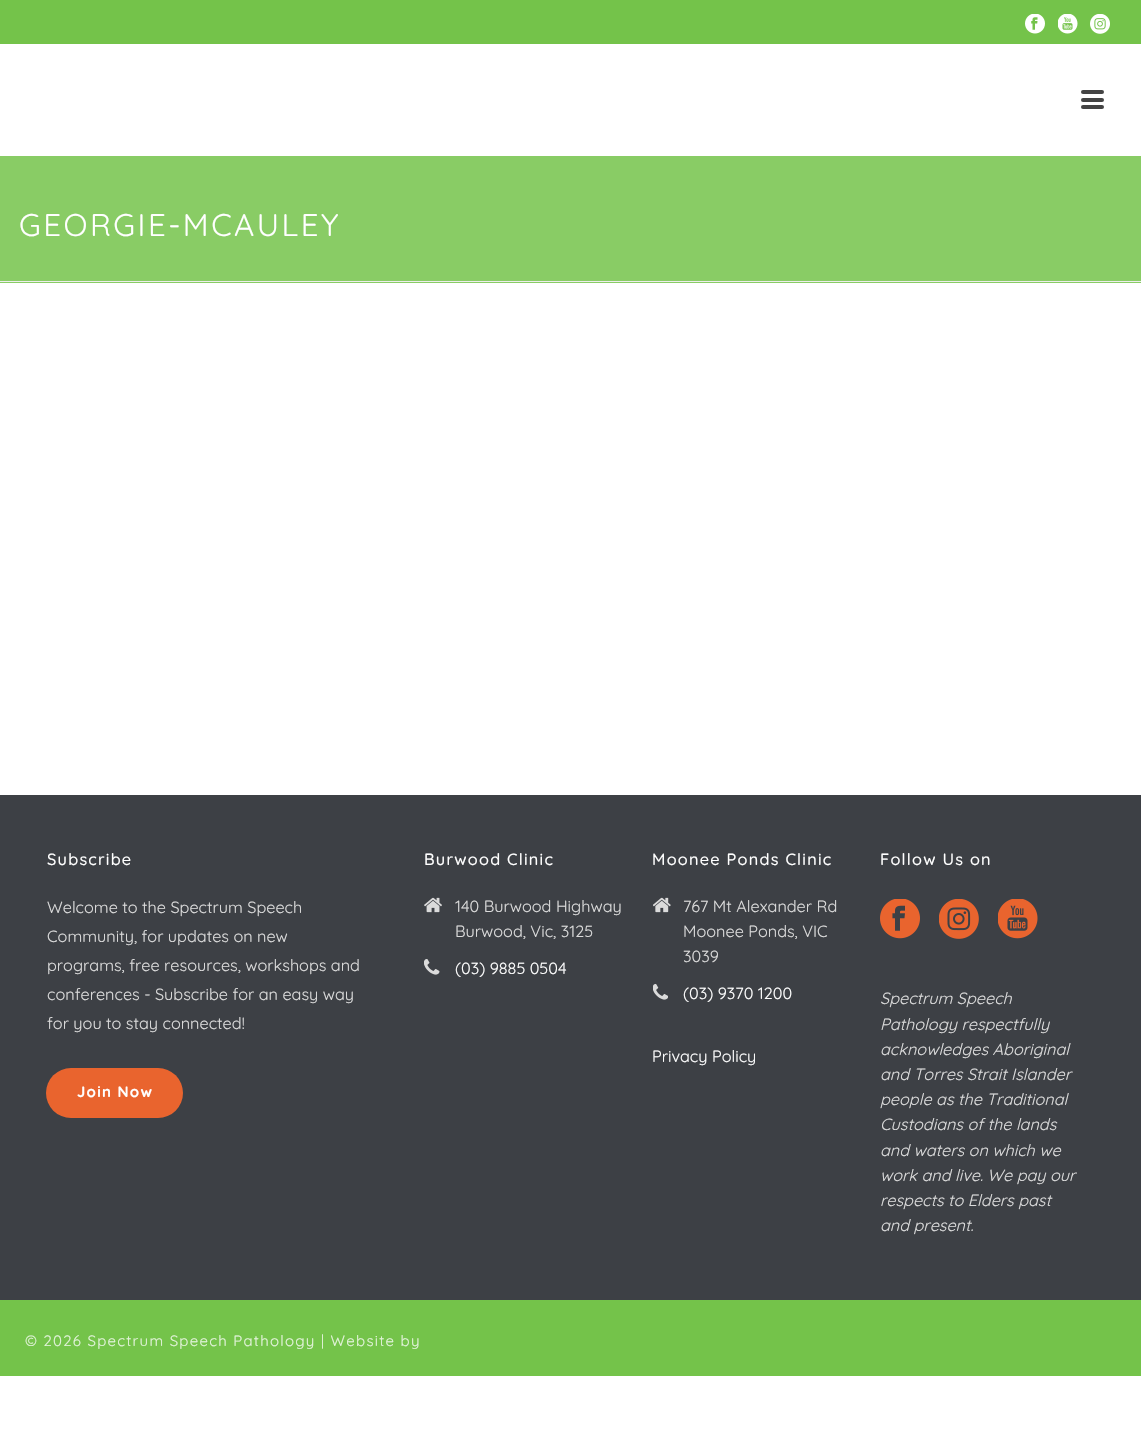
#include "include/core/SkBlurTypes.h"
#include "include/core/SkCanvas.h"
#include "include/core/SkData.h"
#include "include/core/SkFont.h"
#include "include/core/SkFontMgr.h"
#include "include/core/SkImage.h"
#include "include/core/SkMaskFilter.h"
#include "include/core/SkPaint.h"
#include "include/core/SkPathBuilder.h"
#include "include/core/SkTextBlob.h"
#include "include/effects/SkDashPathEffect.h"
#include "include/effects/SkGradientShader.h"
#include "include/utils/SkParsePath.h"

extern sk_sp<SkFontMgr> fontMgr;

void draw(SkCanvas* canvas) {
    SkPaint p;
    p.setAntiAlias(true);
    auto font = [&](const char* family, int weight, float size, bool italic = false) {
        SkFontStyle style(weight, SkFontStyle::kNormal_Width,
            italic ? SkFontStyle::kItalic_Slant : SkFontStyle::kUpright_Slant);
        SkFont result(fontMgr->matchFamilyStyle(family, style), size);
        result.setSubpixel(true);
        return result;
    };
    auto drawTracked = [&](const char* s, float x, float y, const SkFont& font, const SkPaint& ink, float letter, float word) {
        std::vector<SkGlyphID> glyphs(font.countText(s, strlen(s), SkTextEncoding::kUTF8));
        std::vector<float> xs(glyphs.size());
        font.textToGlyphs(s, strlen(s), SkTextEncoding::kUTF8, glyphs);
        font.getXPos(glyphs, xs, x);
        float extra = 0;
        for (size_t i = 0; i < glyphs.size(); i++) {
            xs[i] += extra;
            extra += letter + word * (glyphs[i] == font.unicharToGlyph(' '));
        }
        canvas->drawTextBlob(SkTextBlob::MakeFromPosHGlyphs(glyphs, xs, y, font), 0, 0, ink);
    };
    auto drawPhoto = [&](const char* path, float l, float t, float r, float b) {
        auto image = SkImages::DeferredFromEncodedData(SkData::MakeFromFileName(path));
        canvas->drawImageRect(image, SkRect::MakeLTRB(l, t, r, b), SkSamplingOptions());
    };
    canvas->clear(0xFFFFFFFF);
    {
        const struct { float l, t, r, b; SkColor color; } items[] = {
            {0, 156, 1141, 283, 0xFF89CC65},
            {0, 281, 1141, 282, 0xFFEDEDED},
            {0, 0, 1141, 44, 0xFF74C34A},
        };
        for (auto [l, t, r, b, color] : items) {
            p.setColor(color);
            canvas->drawRect(SkRect::MakeLTRB(l, t, r, b), p);
        }
    }
    drawPhoto("media/1.png", 1025, 14, 1045, 34);
    drawPhoto("media/2.png", 1058, 14, 1078, 34);
    drawPhoto("media/3.png", 1090, 14, 1110, 34);
    p.setColor(0xFF444444);
    canvas->drawRoundRect(SkRect::MakeLTRB(1081, 90, 1104, 94), 2, 2, p);
    canvas->drawRoundRect(SkRect::MakeLTRB(1081, 98, 1104, 102), 2, 2, p);
    canvas->drawRoundRect(SkRect::MakeLTRB(1081, 105, 1104, 109), 2, 2, p);
    auto font1 = font("Quicksand", 400, 31.25f);
    p.setColor(0xFFFFFFFF);
    drawTracked("GEORGIE-MCAULEY", 19, 236, font1, p, 2.5f, 0);
    p.setColor(0xFF3D4045);
    canvas->drawRect(SkRect::MakeLTRB(0, 795, 1141, 1300), p);
    auto font2 = font("Quicksand", 500, 16.25f);
    p.setColor(0xFFFFFFFF);
    drawTracked("Subscribe", 47, 865, font2, p, 1.25f, 0);
    auto font3 = font("Quicksand", 400, 16.25f);
    p.setColor(0xFFDBDBDB);
    {
        const struct { const char* s; float x, y; } items[] = {
            {"Welcome to the Spectrum Speech", 47, 913},
            {"Community, for updates on new", 47, 942},
            {"programs, free resources, workshops and", 47, 971},
            {"conferences - Subscribe for an easy way", 47, 1000},
            {"for you to stay connected!", 47, 1029},
        };
        for (auto [s, x, y] : items) {
            canvas->drawString(s, x, y, font3, p);
        }
    }
    p.setColor(0xFFE9642E);
    canvas->drawRoundRect(SkRect::MakeLTRB(46, 1068, 183, 1118), 25, 25, p);
    auto font4 = font("Quicksand", 700, 15);
    p.setColor(0xFFFFFFFF);
    drawTracked("Join Now", 77, 1097, font4, p, 1.25f, 0);
    drawTracked("Burwood Clinic", 424, 865, font2, p, 1.25f, 0);
    drawPhoto("media/4.png", 424, 897, 442, 913);
    p.setColor(0xFFDBDBDB);
    canvas->drawString("140 Burwood Highway", 455, 912, font3, p);
    canvas->drawString("Burwood, Vic, 3125", 455, 937, font3, p);
    drawPhoto("media/5.png", 424, 959, 440, 975);
    p.setColor(0xFFFFFFFF);
    canvas->drawString("(03) 9885 0504", 455, 974, font3, p);
    drawTracked("Moonee Ponds Clinic", 652, 865, font2, p, 1.25f, 0);
    drawPhoto("media/6.png", 653, 897, 671, 913);
    p.setColor(0xFFDBDBDB);
    {
        const struct { const char* s; float x, y; } items[] = {
            {"767 Mt Alexander Rd", 683, 912},
            {"Moonee Ponds, VIC", 683, 937},
            {"3039", 683, 962},
        };
        for (auto [s, x, y] : items) {
            canvas->drawString(s, x, y, font3, p);
        }
    }
    drawPhoto("media/7.png", 653, 983, 668, 1000);
    p.setColor(0xFFFFFFFF);
    canvas->drawString("(03) 9370 1200", 683, 999, font3, p);
    canvas->drawString("Privacy Policy", 652, 1062, font3, p);
    drawTracked("Follow Us on", 880, 865, font2, p, 1.25f, 0);
    drawPhoto("media/8.png", 880, 899, 920, 939);
    drawPhoto("media/9.png", 939, 899, 979, 939);
    drawPhoto("media/10.png", 998, 899, 1038, 939);
    auto font5 = font("Quicksand", 400, 16.25f, true);
    p.setColor(0xFFDBDBDB);
    {
        const struct { const char* s; float x, y; } items[] = {
            {"Spectrum Speech", 880, 1004},
            {"Pathology respectfully", 880, 1030},
            {"acknowledges Aboriginal", 880, 1055},
            {"and Torres Strait Islander", 880, 1080},
            {"people as the Traditional", 880, 1105},
            {"Custodians of the lands", 880, 1130},
            {"and waters on which we", 880, 1156},
            {"work and live. We pay our", 880, 1181},
            {"respects to Elders past", 880, 1206},
            {"and present.", 880, 1231},
        };
        for (auto [s, x, y] : items) {
            canvas->drawString(s, x, y, font5, p);
        }
    }
    p.setColor(0xFF74C34A);
    canvas->drawRect(SkRect::MakeLTRB(0, 1300, 1141, 1376), p);
    auto font6 = font("Quicksand", 400, 15);
    p.setColor(0xFFE3F3DB);
    drawTracked("© 2026 Spectrum Speech Pathology | Website by", 25, 1346, font6, p, 1.25f, 0);
}
